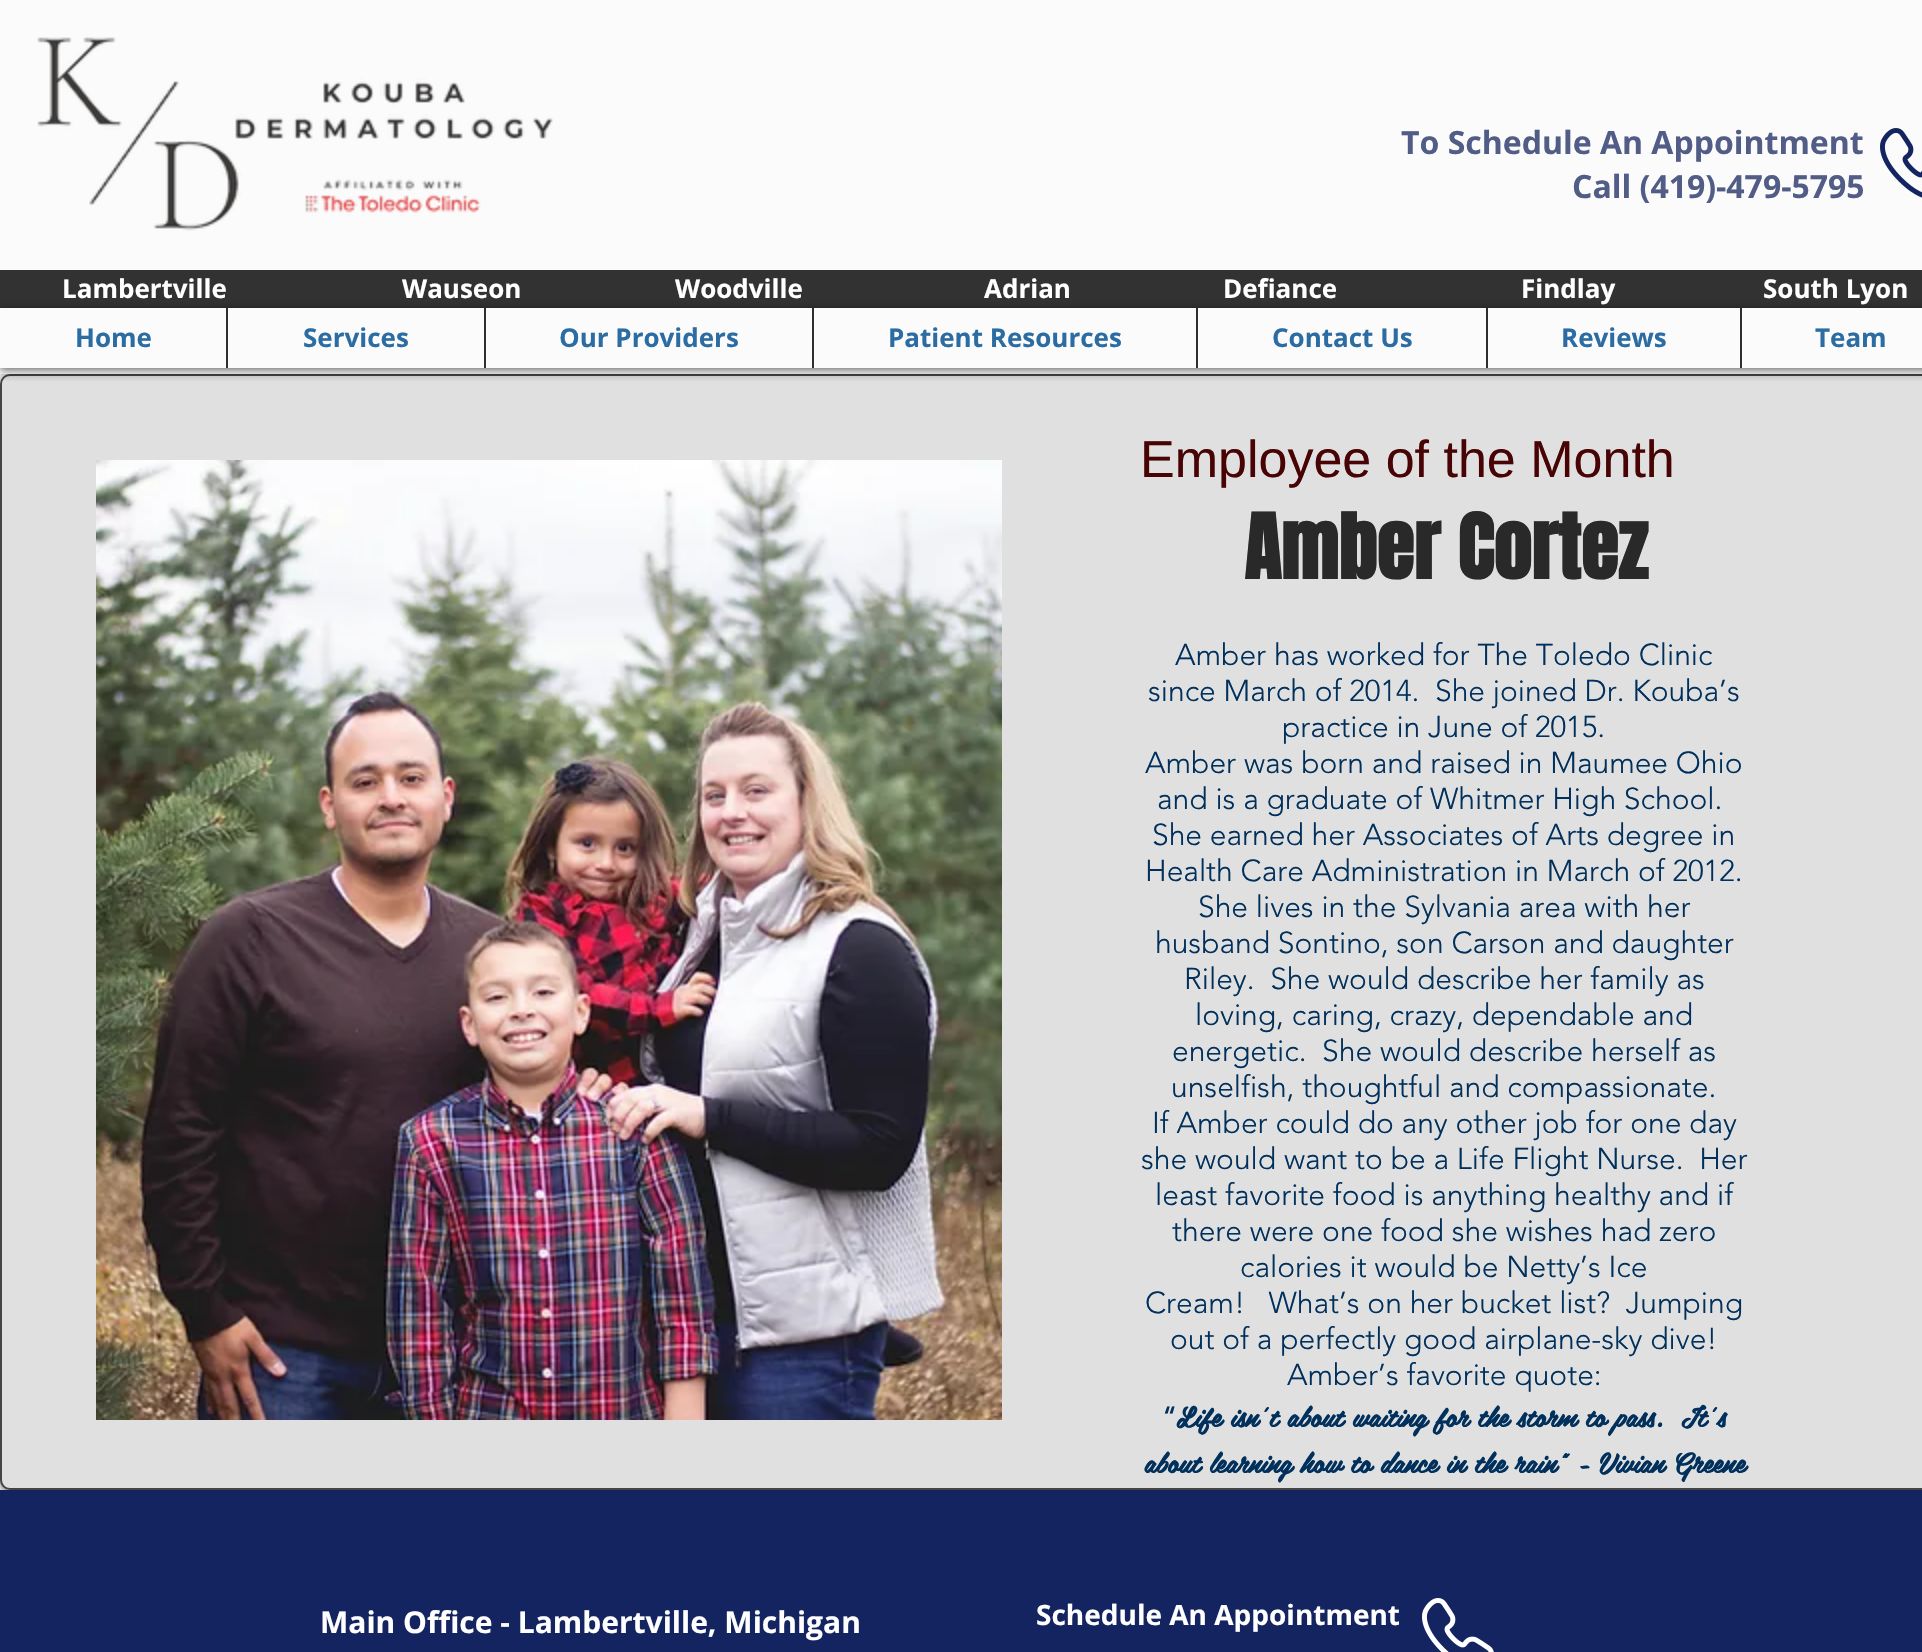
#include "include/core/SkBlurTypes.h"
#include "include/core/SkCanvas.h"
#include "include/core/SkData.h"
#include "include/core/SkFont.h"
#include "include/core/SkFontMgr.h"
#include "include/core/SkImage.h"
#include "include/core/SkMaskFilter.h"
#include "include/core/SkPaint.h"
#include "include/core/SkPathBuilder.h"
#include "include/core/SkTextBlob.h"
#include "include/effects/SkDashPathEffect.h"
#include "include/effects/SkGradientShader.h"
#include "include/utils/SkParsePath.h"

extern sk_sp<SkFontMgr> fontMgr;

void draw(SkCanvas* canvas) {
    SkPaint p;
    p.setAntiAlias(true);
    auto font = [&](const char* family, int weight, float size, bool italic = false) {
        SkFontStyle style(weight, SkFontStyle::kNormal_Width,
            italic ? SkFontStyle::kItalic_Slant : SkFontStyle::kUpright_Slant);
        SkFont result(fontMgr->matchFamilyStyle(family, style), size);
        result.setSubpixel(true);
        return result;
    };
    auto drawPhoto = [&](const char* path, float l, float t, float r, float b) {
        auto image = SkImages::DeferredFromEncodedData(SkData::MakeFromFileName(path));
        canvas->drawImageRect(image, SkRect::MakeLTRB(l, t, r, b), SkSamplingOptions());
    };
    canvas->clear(0xFFFFFFFF);
    p.setColor(0x99000000);
    p.setMaskFilter(SkMaskFilter::MakeBlur(kNormal_SkBlurStyle, 4));
    canvas->drawRoundRect(SkRect::MakeLTRB(0, 376, 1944, 1492), 10, 10, p);
    p.setMaskFilter(nullptr);
    p.setColor(0xFFE0E0E0);
    canvas->drawRoundRect(SkRect::MakeLTRB(1, 375, 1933, 1489), 9, 9, p);
    p.setStyle(SkPaint::kStroke_Style);
    p.setStrokeWidth(2);
    p.setColor(0xFF454545);
    canvas->drawRoundRect(SkRect::MakeLTRB(1, 375, 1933, 1489), 9, 9, p);
    canvas->save();
    canvas->clipRect(SkRect::MakeLTRB(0, 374, 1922, 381));
    p.setStyle(SkPaint::kFill_Style);
    p.setColor(0x38000000);
    p.setMaskFilter(SkMaskFilter::MakeBlur(kNormal_SkBlurStyle, 5));
    canvas->drawRect(SkRect::MakeLTRB(0, 0, 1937, 374), p);
    p.setMaskFilter(nullptr);
    canvas->restore();
    p.setColor(0xD1FAFAFA);
    canvas->drawRect(SkRect::MakeLTRB(0, 0, 1922, 374), p);
    drawPhoto("media/1.png", 37, 37, 553, 231);
    auto font1 = font("Open Sans", 700, 32);
    p.setColor(0xFF515D87);
    canvas->drawString("To Schedule An Appointment", 1401, 154, font1, p);
    canvas->drawString("Call (419)-479-5795", 1572, 198, font1, p);
    drawPhoto("media/2.png", 1880, 128, 1922, 198);
    p.setColor(0xFF323232);
    canvas->drawRect(SkRect::MakeLTRB(0, 270, 1922, 308), p);
    auto font2 = font("Open Sans", 700, 26);
    p.setColor(0xFFFFFFFF);
    {
        const struct { const char* s; float x, y; } items[] = {
            {"Lambertville", 62, 298},
            {"Wauseon", 402, 298},
            {"Woodville", 675, 298},
            {"Adrian", 984, 298},
            {"Defiance", 1223, 298},
            {"Findlay", 1521, 298},
            {"South Lyon", 1763, 298},
        };
        for (auto [s, x, y] : items) {
            canvas->drawString(s, x, y, font2, p);
        }
    }
    canvas->save();
    canvas->clipPath(SkPathBuilder(SkPathFillType::kEvenOdd).moveTo(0, 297).lineTo(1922, 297).lineTo(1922, 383).lineTo(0, 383).close().moveTo(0, 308).lineTo(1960, 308).lineTo(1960, 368).lineTo(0, 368).close().detach(), true);
    p.setColor(0x99000000);
    p.setMaskFilter(SkMaskFilter::MakeBlur(kNormal_SkBlurStyle, 4));
    canvas->drawRect(SkRect::MakeLTRB(0, 310, 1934, 370), p);
    p.setMaskFilter(nullptr);
    canvas->restore();
    p.setColor(0xFF2B6CA3);
    canvas->drawString("Home", 75, 347, font2, p);
    p.setColor(0xFF2F2E2E);
    canvas->drawRect(SkRect::MakeLTRB(226, 308, 228, 368), p);
    p.setColor(0xFF2B6CA3);
    canvas->drawString("Services", 303, 347, font2, p);
    p.setColor(0xFF2F2E2E);
    canvas->drawRect(SkRect::MakeLTRB(484, 308, 486, 368), p);
    p.setColor(0xFF2B6CA3);
    canvas->drawString("Our Providers", 559, 347, font2, p);
    p.setColor(0xFF2F2E2E);
    canvas->drawRect(SkRect::MakeLTRB(812, 308, 814, 368), p);
    p.setColor(0xFF2B6CA3);
    canvas->drawString("Patient Resources", 888, 347, font2, p);
    p.setColor(0xFF2F2E2E);
    canvas->drawRect(SkRect::MakeLTRB(1196, 308, 1198, 368), p);
    p.setColor(0xFF2B6CA3);
    canvas->drawString("Contact Us", 1272, 347, font2, p);
    p.setColor(0xFF2F2E2E);
    canvas->drawRect(SkRect::MakeLTRB(1486, 308, 1488, 368), p);
    p.setColor(0xFF2B6CA3);
    canvas->drawString("Reviews", 1561, 347, font2, p);
    p.setColor(0xFF2F2E2E);
    canvas->drawRect(SkRect::MakeLTRB(1740, 308, 1742, 368), p);
    p.setColor(0xFF2B6CA3);
    canvas->drawString("Team", 1815, 347, font2, p);
    drawPhoto("media/3.png", 96, 460, 1002, 1420);
    auto font3 = font("Liberation Sans", 400, 52);
    p.setColor(0xFF480404);
    canvas->drawString("Employee of the Month", 1140, 477, font3, p);
    auto font4 = font("Anton", 700, 76);
    p.setColor(0xFF292929);
    canvas->drawString("Amber Cortez", 1244, 579, font4, p);
    auto font5 = font("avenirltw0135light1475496", 300, 30);
    p.setColor(0xFF00305B);
    {
        const struct { const char* s; float x, y; } items[] = {
            {"Amber has worked for The Toledo Clinic", 1175, 665},
            {"since March of 2014.  She joined Dr. Kouba’s", 1148, 701},
            {"practice in June of 2015.", 1282, 737},
            {"Amber was born and raised in Maumee Ohio", 1145, 773},
            {"and is a graduate of Whitmer High School.", 1157, 809},
            {"She earned her Associates of Arts degree in", 1152, 845},
            {"Health Care Administration in March of 2012.", 1145, 881},
            {"She lives in the Sylvania area with her", 1198, 917},
            {"husband Sontino, son Carson and daughter", 1155, 953},
            {"Riley.  She would describe her family as", 1184, 989},
            {"loving, caring, crazy, dependable and", 1195, 1025},
            {"energetic.  She would describe herself as", 1172, 1061},
            {"unselfish, thoughtful and compassionate.", 1171, 1097},
            {"If Amber could do any other job for one day", 1152, 1133},
            {"she would want to be a Life Flight Nurse.  Her", 1141, 1169},
            {"least favorite food is anything healthy and if", 1155, 1205},
            {"there were one food she wishes had zero", 1172, 1241},
            {"calories it would be Netty’s Ice", 1240, 1277},
            {"Cream!   What’s on her bucket list?  Jumping", 1145, 1313},
            {"out of a perfectly good airplane-sky dive!", 1170, 1349},
            {"Amber’s favorite quote:", 1287, 1385},
        };
        for (auto [s, x, y] : items) {
            canvas->drawString(s, x, y, font5, p);
        }
    }
    auto font6 = font("avenirltw0135light1475496", 700, 28);
    canvas->drawString("“", 1162, 1427, font6, p);
    auto font7 = font("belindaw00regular", 700, 28);
    canvas->drawString("Life isn’t about waiting for the storm to pass.  It’s", 1176, 1427, font7, p);
    canvas->drawString("about learning how to dance in the rain” - Vivian Greene", 1144, 1473, font7, p);
    p.setColor(0xFF132460);
    canvas->drawRect(SkRect::MakeLTRB(0, 1490, 1922, 1652), p);
    auto font8 = font("Open Sans", 700, 30);
    p.setColor(0xFFFFFFFF);
    canvas->drawString("Main Office - Lambertville, Michigan", 320, 1633, font8, p);
    auto font9 = font("Open Sans", 700, 28);
    canvas->drawString("Schedule An Appointment", 1036, 1625, font9, p);
    drawPhoto("media/4.png", 1422, 1598, 1494, 1652);
}
